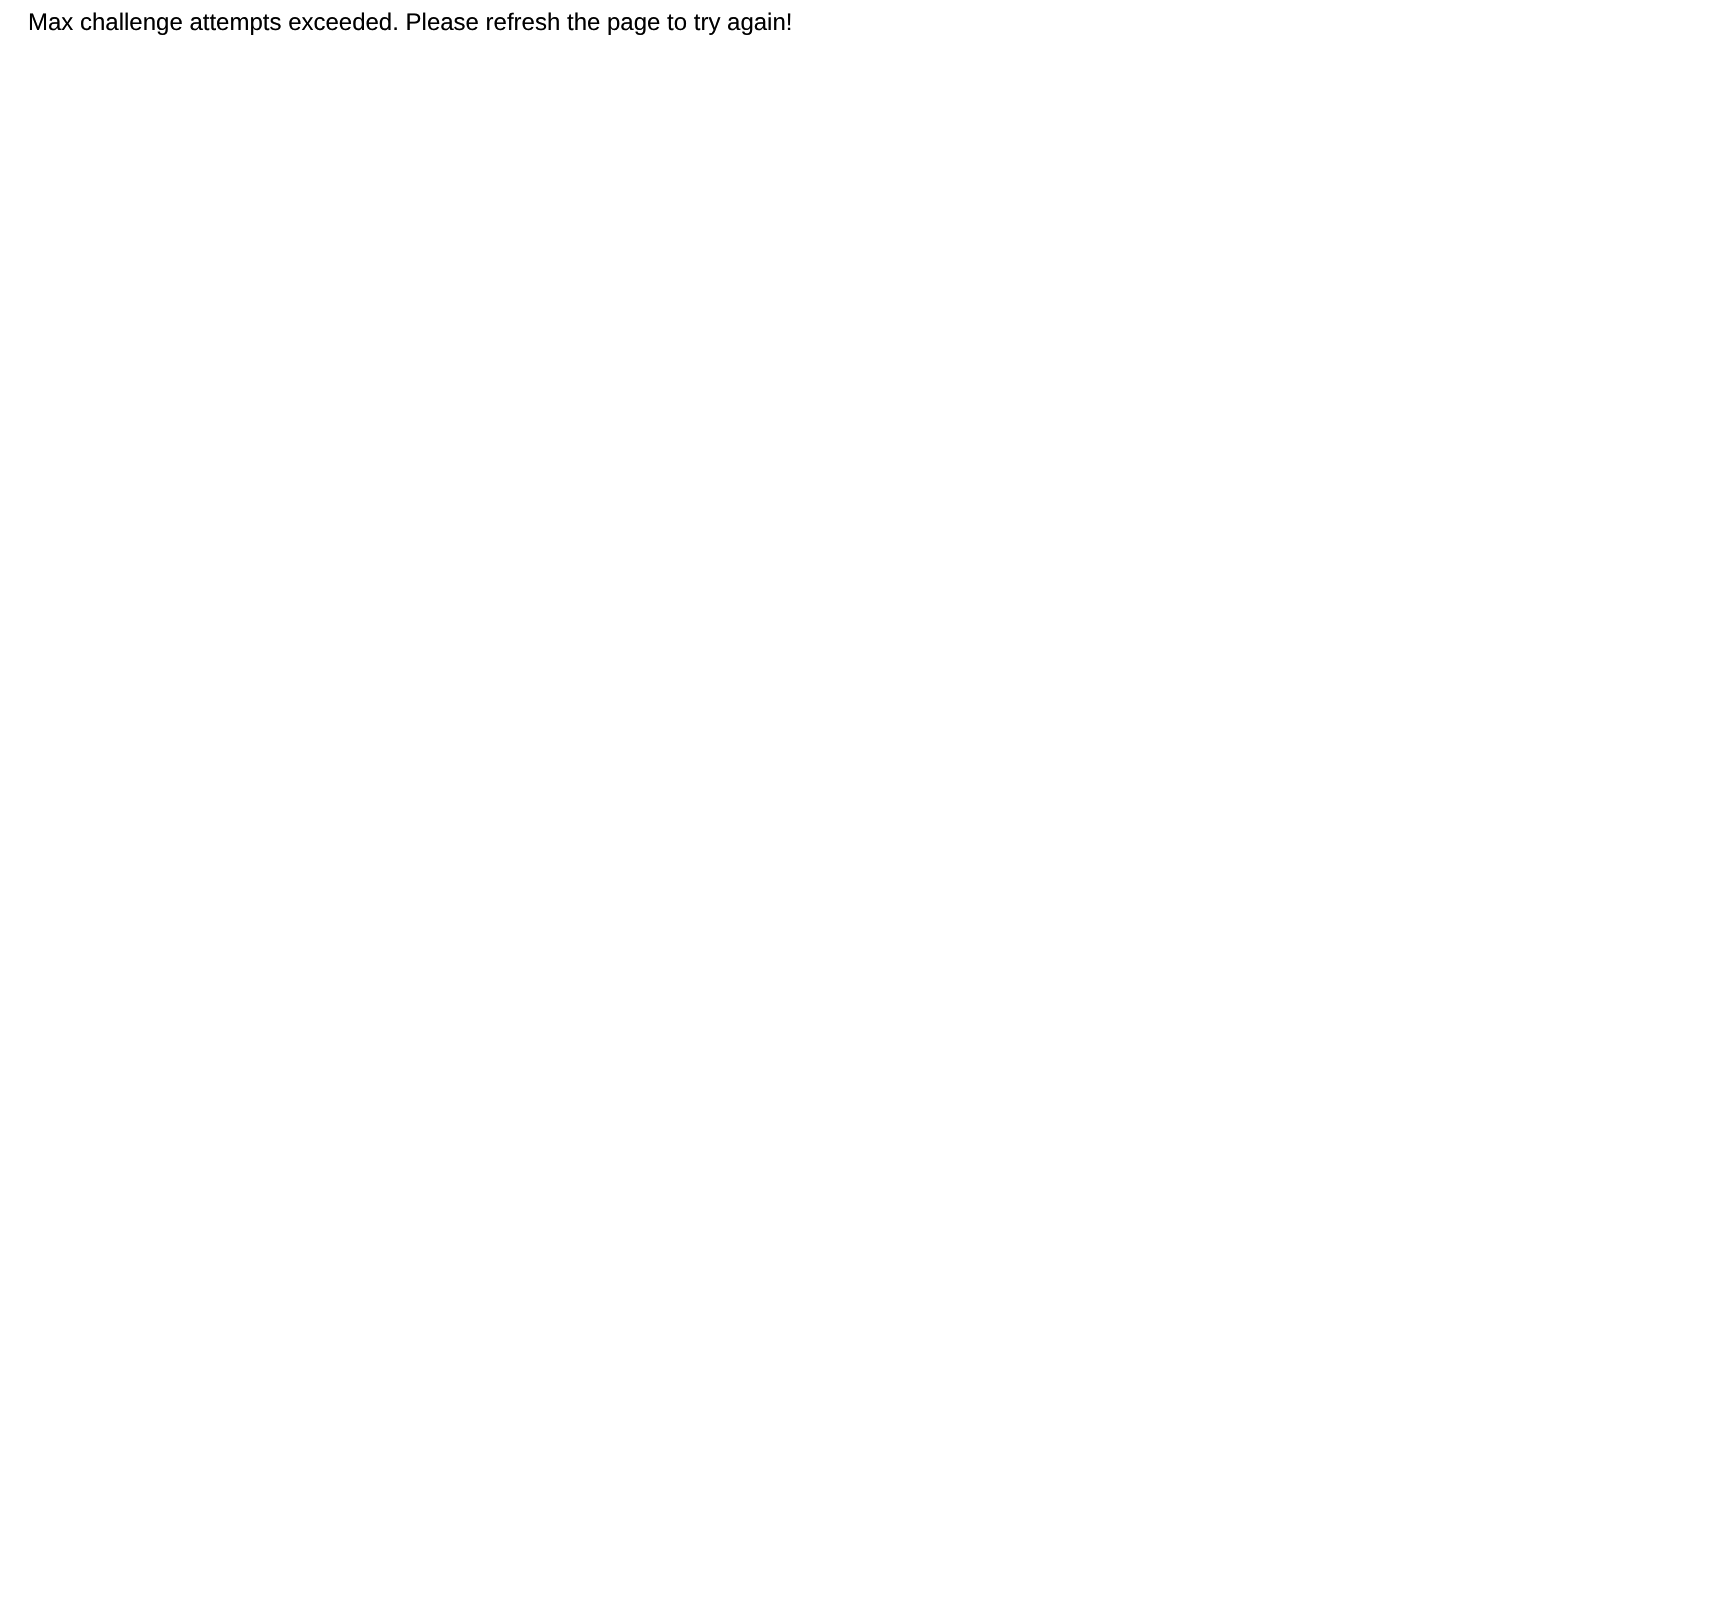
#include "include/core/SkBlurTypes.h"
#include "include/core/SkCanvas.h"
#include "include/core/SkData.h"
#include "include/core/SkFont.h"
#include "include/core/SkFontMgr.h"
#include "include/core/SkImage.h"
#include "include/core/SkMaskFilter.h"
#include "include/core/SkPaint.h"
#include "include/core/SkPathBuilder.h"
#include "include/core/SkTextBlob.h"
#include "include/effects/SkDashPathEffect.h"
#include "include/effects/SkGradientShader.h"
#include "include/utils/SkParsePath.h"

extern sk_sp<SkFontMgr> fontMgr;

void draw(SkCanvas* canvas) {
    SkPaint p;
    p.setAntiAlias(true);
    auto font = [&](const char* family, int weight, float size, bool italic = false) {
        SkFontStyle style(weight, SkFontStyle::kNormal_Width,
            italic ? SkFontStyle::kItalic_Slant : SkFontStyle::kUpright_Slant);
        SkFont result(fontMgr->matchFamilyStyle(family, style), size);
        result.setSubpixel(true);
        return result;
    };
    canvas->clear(0xFFFFFFFF);
    auto font1 = font("Liberation Sans", 400, 24);
    p.setColor(0xFF000000);
    canvas->drawString("Max challenge attempts exceeded. Please refresh the page to try again!", 28, 30, font1, p);
}
